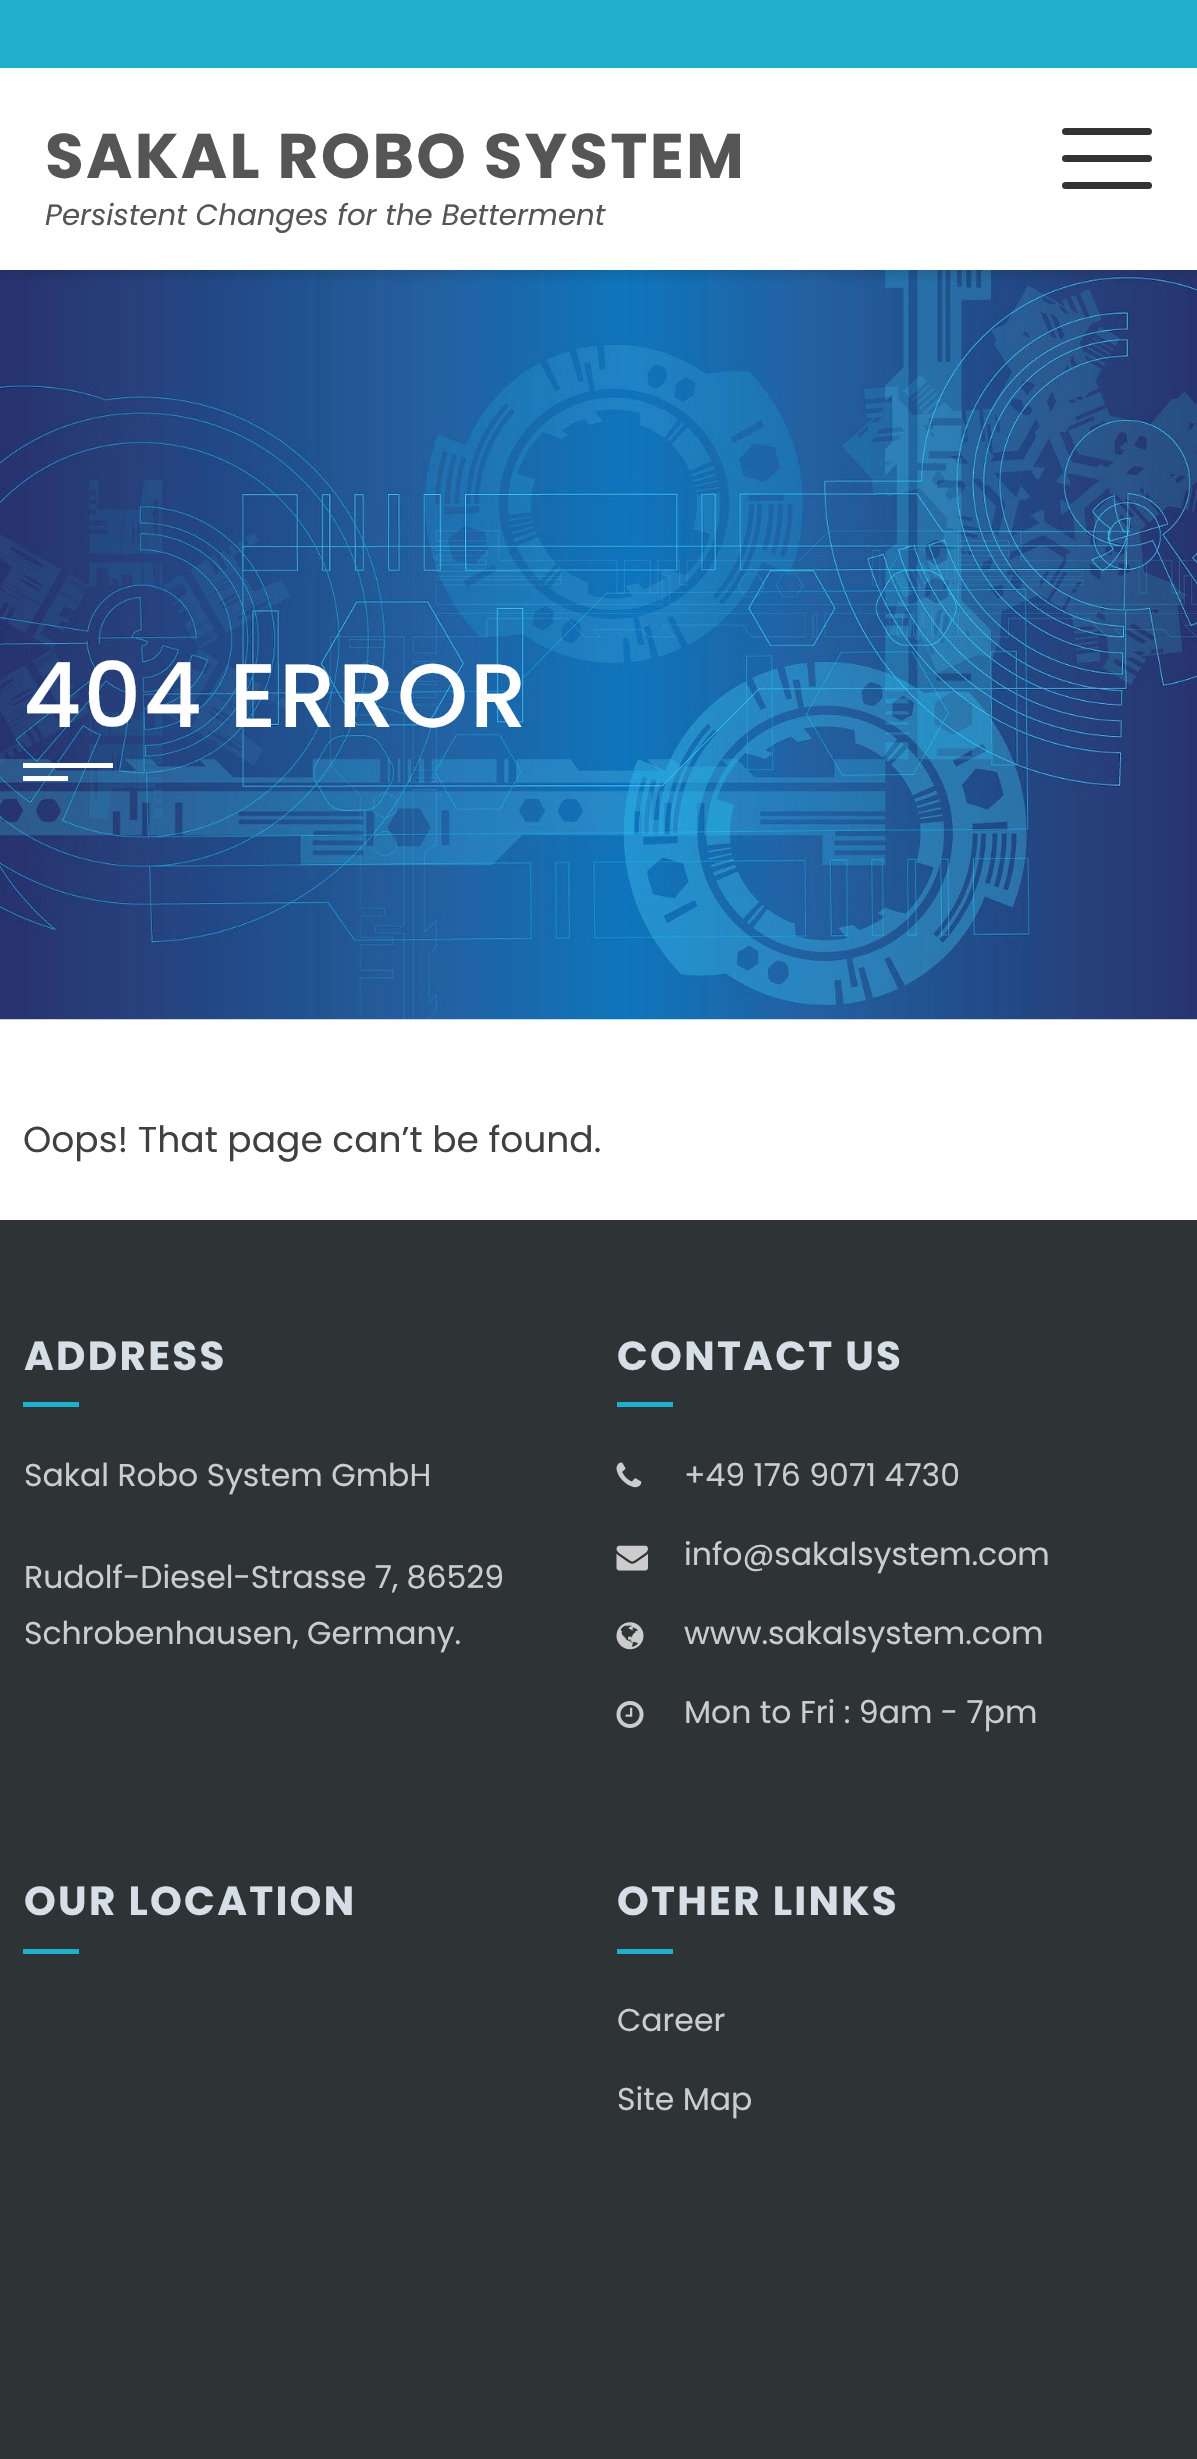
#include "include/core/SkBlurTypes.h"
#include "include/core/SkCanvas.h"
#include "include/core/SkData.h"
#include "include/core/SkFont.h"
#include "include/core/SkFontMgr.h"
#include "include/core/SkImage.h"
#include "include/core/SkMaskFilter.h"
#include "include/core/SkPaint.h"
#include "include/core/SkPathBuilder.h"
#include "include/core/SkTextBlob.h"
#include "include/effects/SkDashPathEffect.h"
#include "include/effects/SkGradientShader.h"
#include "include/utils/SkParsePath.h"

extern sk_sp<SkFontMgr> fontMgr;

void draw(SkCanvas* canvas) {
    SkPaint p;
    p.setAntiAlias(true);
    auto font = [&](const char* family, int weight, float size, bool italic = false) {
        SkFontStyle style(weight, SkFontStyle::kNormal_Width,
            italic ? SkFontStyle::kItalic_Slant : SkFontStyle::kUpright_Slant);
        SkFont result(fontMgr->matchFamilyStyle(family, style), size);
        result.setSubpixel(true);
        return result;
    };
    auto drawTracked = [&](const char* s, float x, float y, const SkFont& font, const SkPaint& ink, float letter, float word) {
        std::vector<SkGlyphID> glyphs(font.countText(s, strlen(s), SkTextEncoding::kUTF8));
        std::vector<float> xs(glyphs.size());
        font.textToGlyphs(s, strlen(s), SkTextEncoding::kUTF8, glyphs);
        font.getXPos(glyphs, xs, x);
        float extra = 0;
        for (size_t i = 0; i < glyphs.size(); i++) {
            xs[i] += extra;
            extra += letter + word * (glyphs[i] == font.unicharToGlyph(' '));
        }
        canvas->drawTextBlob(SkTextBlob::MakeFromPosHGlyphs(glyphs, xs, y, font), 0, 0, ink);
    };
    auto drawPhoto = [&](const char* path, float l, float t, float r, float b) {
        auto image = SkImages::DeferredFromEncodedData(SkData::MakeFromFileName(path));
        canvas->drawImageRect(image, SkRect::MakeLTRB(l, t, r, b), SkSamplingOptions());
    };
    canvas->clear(0xFFFFFFFF);
    drawPhoto("media/1.png", 0, 270, 1197, 1020);
    canvas->save();
    canvas->clipRect(SkRect::MakeLTRB(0, 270, 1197, 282));
    p.setColor(0x33000000);
    p.setMaskFilter(SkMaskFilter::MakeBlur(kNormal_SkBlurStyle, 9));
    canvas->drawRect(SkRect::MakeLTRB(0, 0, 1197, 270), p);
    p.setMaskFilter(nullptr);
    canvas->restore();
    p.setColor(0xFF20AFCC);
    canvas->drawRect(SkRect::MakeLTRB(0, 0, 1197, 68), p);
    auto font1 = font("Poppins", 700, 63);
    p.setColor(0xFF555555);
    drawTracked("SAKAL ROBO SYSTEM", 45, 178, font1, p, 2.25f, 0);
    auto font2 = font("Poppins", 400, 29.25f, true);
    canvas->drawString("Persistent Changes for the Betterment", 45, 225, font2, p);
    p.setColor(0xFF333333);
    canvas->drawRoundRect(SkRect::MakeLTRB(1062, 155, 1152, 162), 3.5f, 3.5f, p);
    canvas->drawRoundRect(SkRect::MakeLTRB(1062, 128, 1152, 135), 3.5f, 3.5f, p);
    canvas->drawRoundRect(SkRect::MakeLTRB(1062, 182, 1152, 189), 3.5f, 3.5f, p);
    auto font3 = font("Poppins", 500, 90);
    p.setColor(0xFFFFFFFF);
    drawTracked("404 ERROR", 23, 727, font3, p, 2.25f, 0);
    canvas->drawRect(SkRect::MakeLTRB(23, 763, 113, 768), p);
    canvas->drawRect(SkRect::MakeLTRB(23, 776, 68, 781), p);
    auto font4 = font("Poppins", 400, 36);
    p.setColor(0xFF404040);
    canvas->drawString("Oops! That page can’t be found.", 23, 1152, font4, p);
    p.setColor(0xFF2E3336);
    canvas->drawRect(SkRect::MakeLTRB(0, 1220, 1197, 2459), p);
    auto font5 = font("Poppins", 700, 40.5f);
    p.setColor(0xFFD5DFE5);
    drawTracked("ADDRESS", 24, 1370, font5, p, 2.25f, 0);
    p.setColor(0xFF20AFCC);
    canvas->drawRect(SkRect::MakeLTRB(23, 1402, 79, 1407), p);
    auto font6 = font("Poppins", 400, 31.5f);
    p.setColor(0xFFCCCCCC);
    {
        const struct { const char* s; float x, y; } items[] = {
            {"Sakal Robo System GmbH", 24, 1486},
            {"Rudolf-Diesel-Strasse 7, 86529", 24, 1588},
            {"Schrobenhausen, Germany.", 24, 1644},
        };
        for (auto [s, x, y] : items) {
            canvas->drawString(s, x, y, font6, p);
        }
    }
    p.setColor(0xFFD5DFE5);
    drawTracked("CONTACT US", 617, 1370, font5, p, 2.25f, 0);
    p.setColor(0xFF20AFCC);
    canvas->drawRect(SkRect::MakeLTRB(617, 1402, 673, 1407), p);
    drawPhoto("media/2.png", 616, 1462, 642, 1488);
    p.setColor(0xFFCCCCCC);
    canvas->drawString("+49 176 9071 4730", 684, 1486, font6, p);
    drawPhoto("media/3.png", 616, 1545, 648, 1571);
    canvas->drawString("info@sakalsystem.com", 684, 1565, font6, p);
    drawPhoto("media/4.png", 616, 1622, 644, 1650);
    canvas->drawString("www.sakalsystem.com", 684, 1644, font6, p);
    drawPhoto("media/5.png", 616, 1701, 644, 1728);
    canvas->drawString("Mon to Fri : 9am - 7pm", 684, 1723, font6, p);
    p.setColor(0xFFD5DFE5);
    drawTracked("OUR LOCATION", 24, 1915, font5, p, 2.25f, 0);
    p.setColor(0xFF20AFCC);
    canvas->drawRect(SkRect::MakeLTRB(23, 1949, 79, 1954), p);
    p.setColor(0xFFD5DFE5);
    drawTracked("OTHER LINKS", 617, 1915, font5, p, 2.25f, 0);
    p.setColor(0xFF20AFCC);
    canvas->drawRect(SkRect::MakeLTRB(617, 1949, 673, 1954), p);
    p.setColor(0xFFCCCCCC);
    canvas->drawString("Career", 617, 2031, font6, p);
    canvas->drawString("Site Map", 617, 2110, font6, p);
}
